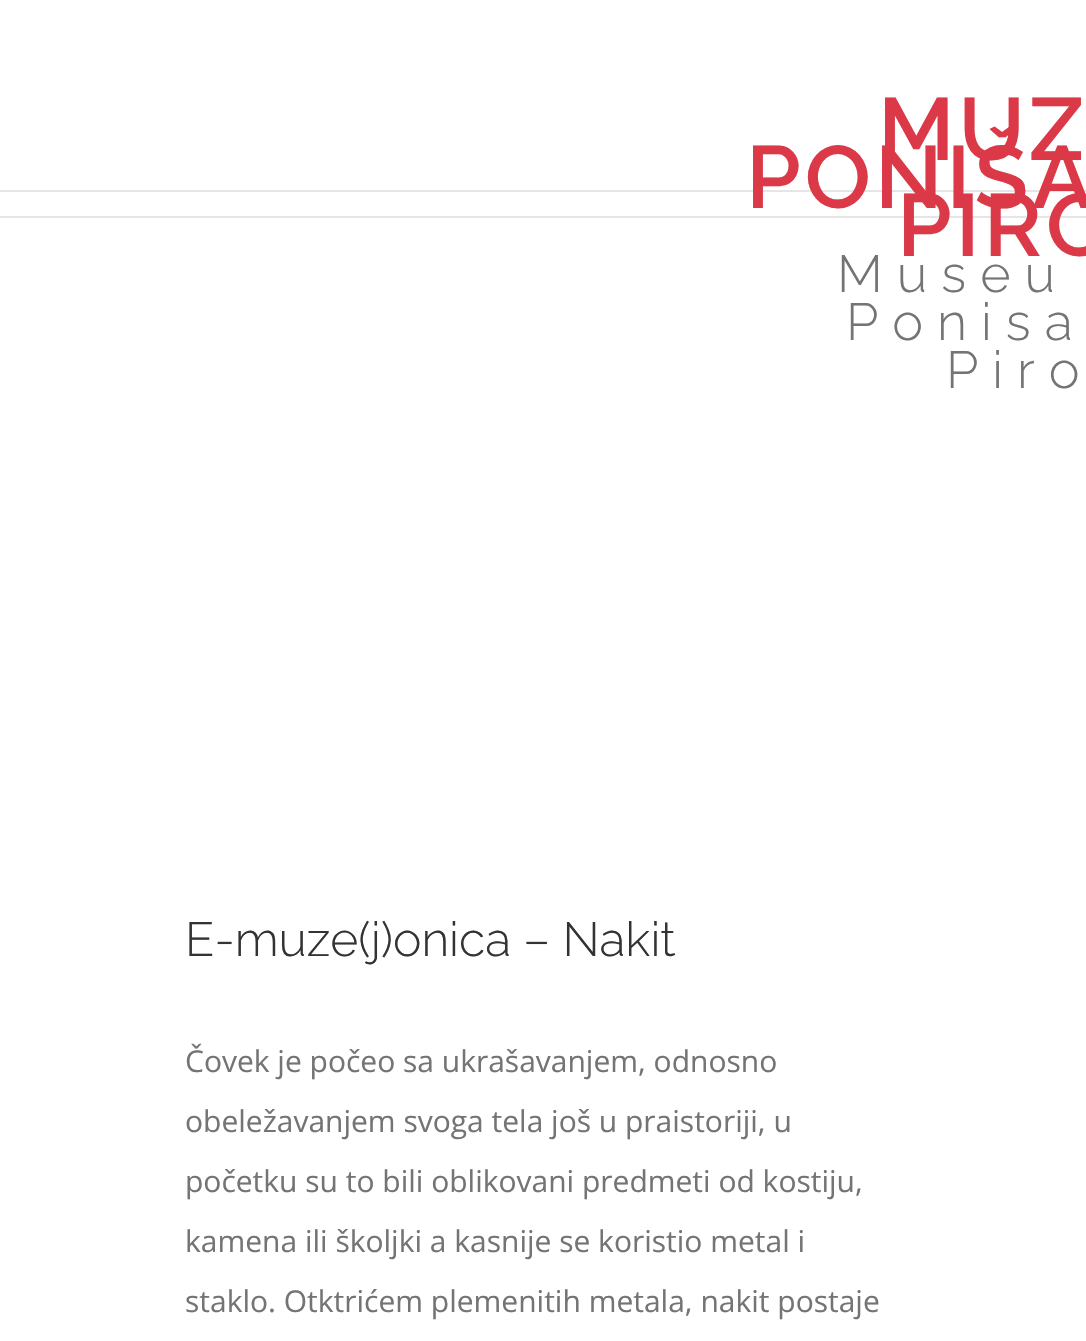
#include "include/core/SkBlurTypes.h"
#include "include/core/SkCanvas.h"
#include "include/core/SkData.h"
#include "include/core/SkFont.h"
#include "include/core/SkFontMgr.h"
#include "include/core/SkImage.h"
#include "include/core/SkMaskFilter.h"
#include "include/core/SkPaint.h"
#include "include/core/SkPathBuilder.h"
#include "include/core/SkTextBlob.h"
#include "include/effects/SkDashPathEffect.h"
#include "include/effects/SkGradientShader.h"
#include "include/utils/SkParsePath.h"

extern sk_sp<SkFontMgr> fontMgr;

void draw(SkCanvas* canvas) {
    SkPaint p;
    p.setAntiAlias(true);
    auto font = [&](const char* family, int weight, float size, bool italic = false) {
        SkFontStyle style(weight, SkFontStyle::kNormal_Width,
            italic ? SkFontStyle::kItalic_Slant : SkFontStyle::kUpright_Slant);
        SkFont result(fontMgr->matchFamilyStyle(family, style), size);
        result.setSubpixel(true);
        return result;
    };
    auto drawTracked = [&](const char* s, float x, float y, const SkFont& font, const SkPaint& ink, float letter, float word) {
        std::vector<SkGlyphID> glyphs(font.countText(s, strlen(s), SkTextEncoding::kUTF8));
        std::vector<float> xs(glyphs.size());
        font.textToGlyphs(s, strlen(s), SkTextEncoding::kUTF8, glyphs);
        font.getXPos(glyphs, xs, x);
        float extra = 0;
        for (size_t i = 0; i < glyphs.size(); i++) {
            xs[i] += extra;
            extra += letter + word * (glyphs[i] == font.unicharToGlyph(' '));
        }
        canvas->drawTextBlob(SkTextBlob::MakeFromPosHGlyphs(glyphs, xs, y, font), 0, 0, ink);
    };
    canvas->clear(0xFFFFFFFF);
    p.setColor(0xFFE5E5E5);
    canvas->drawRect(SkRect::MakeLTRB(0, 190, 1086, 192), p);
    auto font1 = font("Raleway", 600, 88);
    p.setColor(0xFFDB3948);
    drawTracked("MUZ", 878, 160, font1, p, 4, 0);
    drawTracked("PONIŠA", 746, 208, font1, p, 4, 0);
    p.setColor(0xFFE5E5E5);
    canvas->drawRect(SkRect::MakeLTRB(0, 216, 1086, 218), p);
    p.setColor(0xFFDB3948);
    drawTracked("PIRO", 897, 256, font1, p, 4, 0);
    auto font2 = font("Raleway", 300, 52);
    p.setColor(0xFF747474);
    {
        const struct { const char* s; float x, y; } items[] = {
            {"Museu", 837, 292},
            {"Ponisa", 846, 340},
            {"Piro", 946, 388},
        };
        for (auto [s, x, y] : items) {
            drawTracked(s, x, y, font2, p, 14, 0);
        }
    }
    auto font3 = font("Raleway", 300, 48);
    p.setColor(0xFF333333);
    canvas->drawString("E-muze(j)onica – Nakit", 185, 956, font3, p);
    auto font4 = font("Open Sans", 400, 30);
    p.setColor(0xFF747474);
    {
        const struct { const char* s; float x, y; } items[] = {
            {"Čovek je počeo sa ukrašavanjem, odnosno", 185, 1072},
            {"obeležavanjem svoga tela još u praistoriji, u", 185, 1132},
            {"početku su to bili oblikovani predmeti od kostiju,", 185, 1192},
            {"kamena ili školjki a kasnije se koristio metal i", 185, 1252},
            {"staklo. Otktrićem plemenitih metala, nakit postaje", 185, 1312},
        };
        for (auto [s, x, y] : items) {
            canvas->drawString(s, x, y, font4, p);
        }
    }
}
